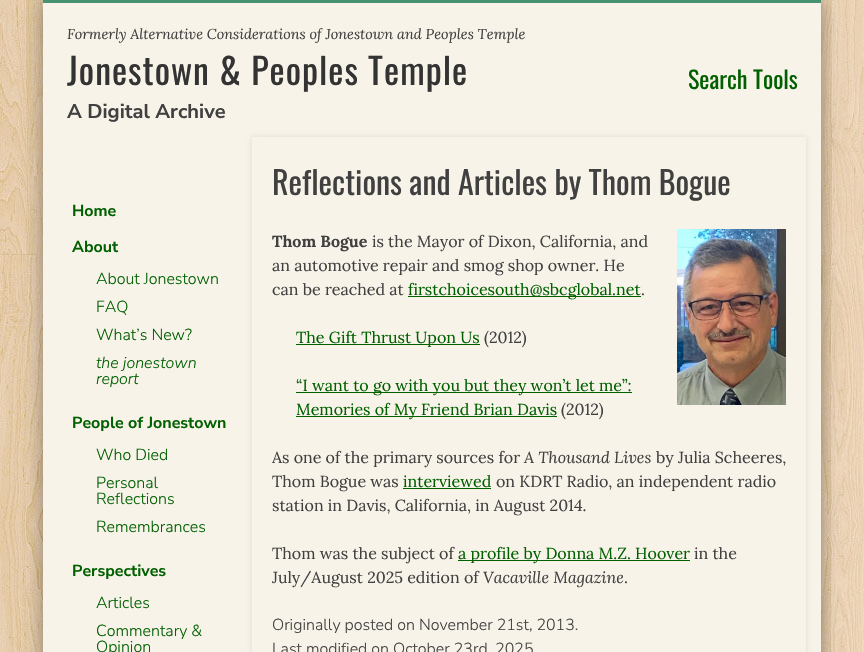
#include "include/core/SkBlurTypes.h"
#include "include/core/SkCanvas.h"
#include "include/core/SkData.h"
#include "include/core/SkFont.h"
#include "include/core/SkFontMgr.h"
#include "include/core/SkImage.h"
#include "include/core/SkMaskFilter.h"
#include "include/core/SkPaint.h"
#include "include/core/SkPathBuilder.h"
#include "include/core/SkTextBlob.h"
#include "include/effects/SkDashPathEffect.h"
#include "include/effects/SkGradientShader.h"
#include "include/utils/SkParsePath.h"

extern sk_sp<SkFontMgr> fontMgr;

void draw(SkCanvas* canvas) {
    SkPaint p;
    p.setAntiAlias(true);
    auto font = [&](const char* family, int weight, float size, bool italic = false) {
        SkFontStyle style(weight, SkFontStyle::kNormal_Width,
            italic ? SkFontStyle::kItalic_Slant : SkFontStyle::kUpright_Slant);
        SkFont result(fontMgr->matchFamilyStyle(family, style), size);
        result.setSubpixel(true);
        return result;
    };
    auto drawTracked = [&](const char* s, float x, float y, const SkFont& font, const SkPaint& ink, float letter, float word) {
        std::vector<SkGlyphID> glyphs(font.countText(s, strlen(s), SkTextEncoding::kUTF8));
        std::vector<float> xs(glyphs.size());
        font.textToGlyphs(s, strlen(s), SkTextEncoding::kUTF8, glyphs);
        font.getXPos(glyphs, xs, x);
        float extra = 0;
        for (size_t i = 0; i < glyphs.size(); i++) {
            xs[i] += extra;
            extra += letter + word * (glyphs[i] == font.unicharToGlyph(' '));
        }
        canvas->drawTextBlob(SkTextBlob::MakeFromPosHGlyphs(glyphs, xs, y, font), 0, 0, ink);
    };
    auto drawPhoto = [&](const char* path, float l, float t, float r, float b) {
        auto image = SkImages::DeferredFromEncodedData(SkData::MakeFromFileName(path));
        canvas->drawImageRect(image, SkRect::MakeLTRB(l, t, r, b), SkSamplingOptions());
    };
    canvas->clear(0xFFFFFFFF);
    drawPhoto("media/1.png", 0, 0, 864, 652);
    p.setColor(0x66000000);
    p.setMaskFilter(SkMaskFilter::MakeBlur(kNormal_SkBlurStyle, 9));
    canvas->drawRect(SkRect::MakeLTRB(43, 0, 821, 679), p);
    p.setMaskFilter(nullptr);
    p.setColor(0xFFF8F3E9);
    canvas->drawRect(SkRect::MakeLTRB(43, 3, 821, 652), p);
    p.setColor(0xFF469272);
    canvas->drawRect(SkRect::MakeLTRB(43, 0, 821, 3), p);
    auto font1 = font("Lora", 400, 14.4f, true);
    p.setColor(0xFF404040);
    canvas->drawString("Formerly Alternative Considerations of Jonestown and Peoples Temple", 67, 39, font1, p);
    auto font2 = font("Oswald", 400, 36);
    p.setColor(0xFF333333);
    drawTracked("Jonestown & Peoples Temple", 67, 85, font2, p, 1, 0);
    auto font3 = font("Nunito Sans", 700, 20);
    p.setColor(0xFF404040);
    canvas->drawString("A Digital Archive", 67, 118, font3, p);
    auto font4 = font("Oswald", 400, 24);
    p.setColor(0xFF006000);
    canvas->drawString("Search Tools", 688, 89, font4, p);
    auto font5 = font("Nunito Sans", 700, 16);
    canvas->drawString("Home", 72, 216, font5, p);
    canvas->drawString("About", 72, 252, font5, p);
    auto font6 = font("Nunito Sans", 300, 16);
    {
        const struct { const char* s; float x, y; } items[] = {
            {"About Jonestown", 96, 284},
            {"FAQ", 96, 312},
            {"What’s New?", 96, 340},
        };
        for (auto [s, x, y] : items) {
            canvas->drawString(s, x, y, font6, p);
        }
    }
    auto font7 = font("Nunito Sans", 300, 16, true);
    canvas->drawString("the jonestown", 96, 368, font7, p);
    canvas->drawString("report", 96, 384, font7, p);
    canvas->drawString("People of Jonestown", 72, 428, font5, p);
    {
        const struct { const char* s; float x, y; } items[] = {
            {"Who Died", 96, 460},
            {"Personal", 96, 488},
            {"Reflections", 96, 504},
            {"Remembrances", 96, 532},
        };
        for (auto [s, x, y] : items) {
            canvas->drawString(s, x, y, font6, p);
        }
    }
    canvas->drawString("Perspectives", 72, 576, font5, p);
    {
        const struct { const char* s; float x, y; } items[] = {
            {"Articles", 96, 608},
            {"Commentary &", 96, 636},
            {"Opinion", 96, 652},
        };
        for (auto [s, x, y] : items) {
            canvas->drawString(s, x, y, font6, p);
        }
    }
    canvas->save();
    canvas->clipPath(SkPathBuilder(SkPathFillType::kEvenOdd).moveTo(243, 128).lineTo(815, 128).lineTo(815, 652).lineTo(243, 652).close().moveTo(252, 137).lineTo(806, 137).lineTo(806, 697).lineTo(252, 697).close().detach(), true);
    p.setColor(0x1A000000);
    p.setMaskFilter(SkMaskFilter::MakeBlur(kNormal_SkBlurStyle, 2.5f));
    canvas->drawRect(SkRect::MakeLTRB(252, 137, 806, 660), p);
    p.setMaskFilter(nullptr);
    canvas->restore();
    auto font8 = font("Oswald", 400, 32);
    p.setColor(0xFF404040);
    canvas->drawString("Reflections and Articles by Thom Bogue", 272, 195, font8, p);
    auto font9 = font("Lora", 700, 16);
    canvas->drawString("Thom Bogue", 272, 247, font9, p);
    drawPhoto("media/2.png", 677, 229, 786, 405);
    auto font10 = font("Lora", 400, 16);
    {
        const struct { const char* s; float x, y; } items[] = {
            {"is the Mayor of Dixon, California, and", 372, 247},
            {"an automotive repair and smog shop owner. He", 272, 271},
            {"can be reached at", 272, 295},
        };
        for (auto [s, x, y] : items) {
            canvas->drawString(s, x, y, font10, p);
        }
    }
    p.setColor(0xFF006000);
    canvas->drawRect(SkRect::MakeLTRB(408, 296, 641, 297), p);
    canvas->drawString("firstchoicesouth@sbcglobal.net", 408, 295, font10, p);
    p.setColor(0xFF404040);
    canvas->drawString(".", 641, 295, font10, p);
    p.setColor(0xFF006000);
    canvas->drawRect(SkRect::MakeLTRB(296, 344, 480, 345), p);
    canvas->drawString("The Gift Thrust Upon Us", 296, 343, font10, p);
    p.setColor(0xFF404040);
    canvas->drawString("(2012)", 484, 343, font10, p);
    p.setColor(0xFF006000);
    canvas->drawRect(SkRect::MakeLTRB(296, 392, 632, 393), p);
    canvas->drawString("“I want to go with you but they won’t let me”:", 296, 391, font10, p);
    canvas->drawRect(SkRect::MakeLTRB(296, 416, 557, 417), p);
    canvas->drawString("Memories of My Friend Brian Davis", 296, 415, font10, p);
    p.setColor(0xFF404040);
    canvas->drawString("(2012)", 561, 415, font10, p);
    canvas->drawString("As one of the primary sources for", 272, 463, font10, p);
    auto font11 = font("Lora", 400, 16, true);
    canvas->drawString("A Thousand Lives", 524, 463, font11, p);
    canvas->drawString("by Julia Scheeres,", 656, 463, font10, p);
    canvas->drawString("Thom Bogue was", 272, 487, font10, p);
    p.setColor(0xFF006000);
    canvas->drawString("interviewed", 403, 487, font10, p);
    canvas->drawRect(SkRect::MakeLTRB(403, 488, 491, 489), p);
    p.setColor(0xFF404040);
    {
        const struct { const char* s; float x, y; } items[] = {
            {"on KDRT Radio, an independent radio", 496, 487},
            {"station in Davis, California, in August 2014.", 272, 511},
            {"Thom was the subject of", 272, 559},
        };
        for (auto [s, x, y] : items) {
            canvas->drawString(s, x, y, font10, p);
        }
    }
    p.setColor(0xFF006000);
    canvas->drawRect(SkRect::MakeLTRB(458, 560, 690, 561), p);
    canvas->drawString("a profile by Donna M.Z. Hoover", 458, 559, font10, p);
    p.setColor(0xFF404040);
    canvas->drawString("in the", 694, 559, font10, p);
    canvas->drawString("July/August 2025 edition of", 272, 583, font10, p);
    canvas->drawString("Vacaville Magazine", 483, 583, font11, p);
    canvas->drawString(".", 624, 583, font10, p);
    canvas->drawString("Originally posted on November 21st, 2013.", 272, 630, font6, p);
    canvas->drawString("Last modified on October 23rd, 2025", 272, 654, font6, p);
}
